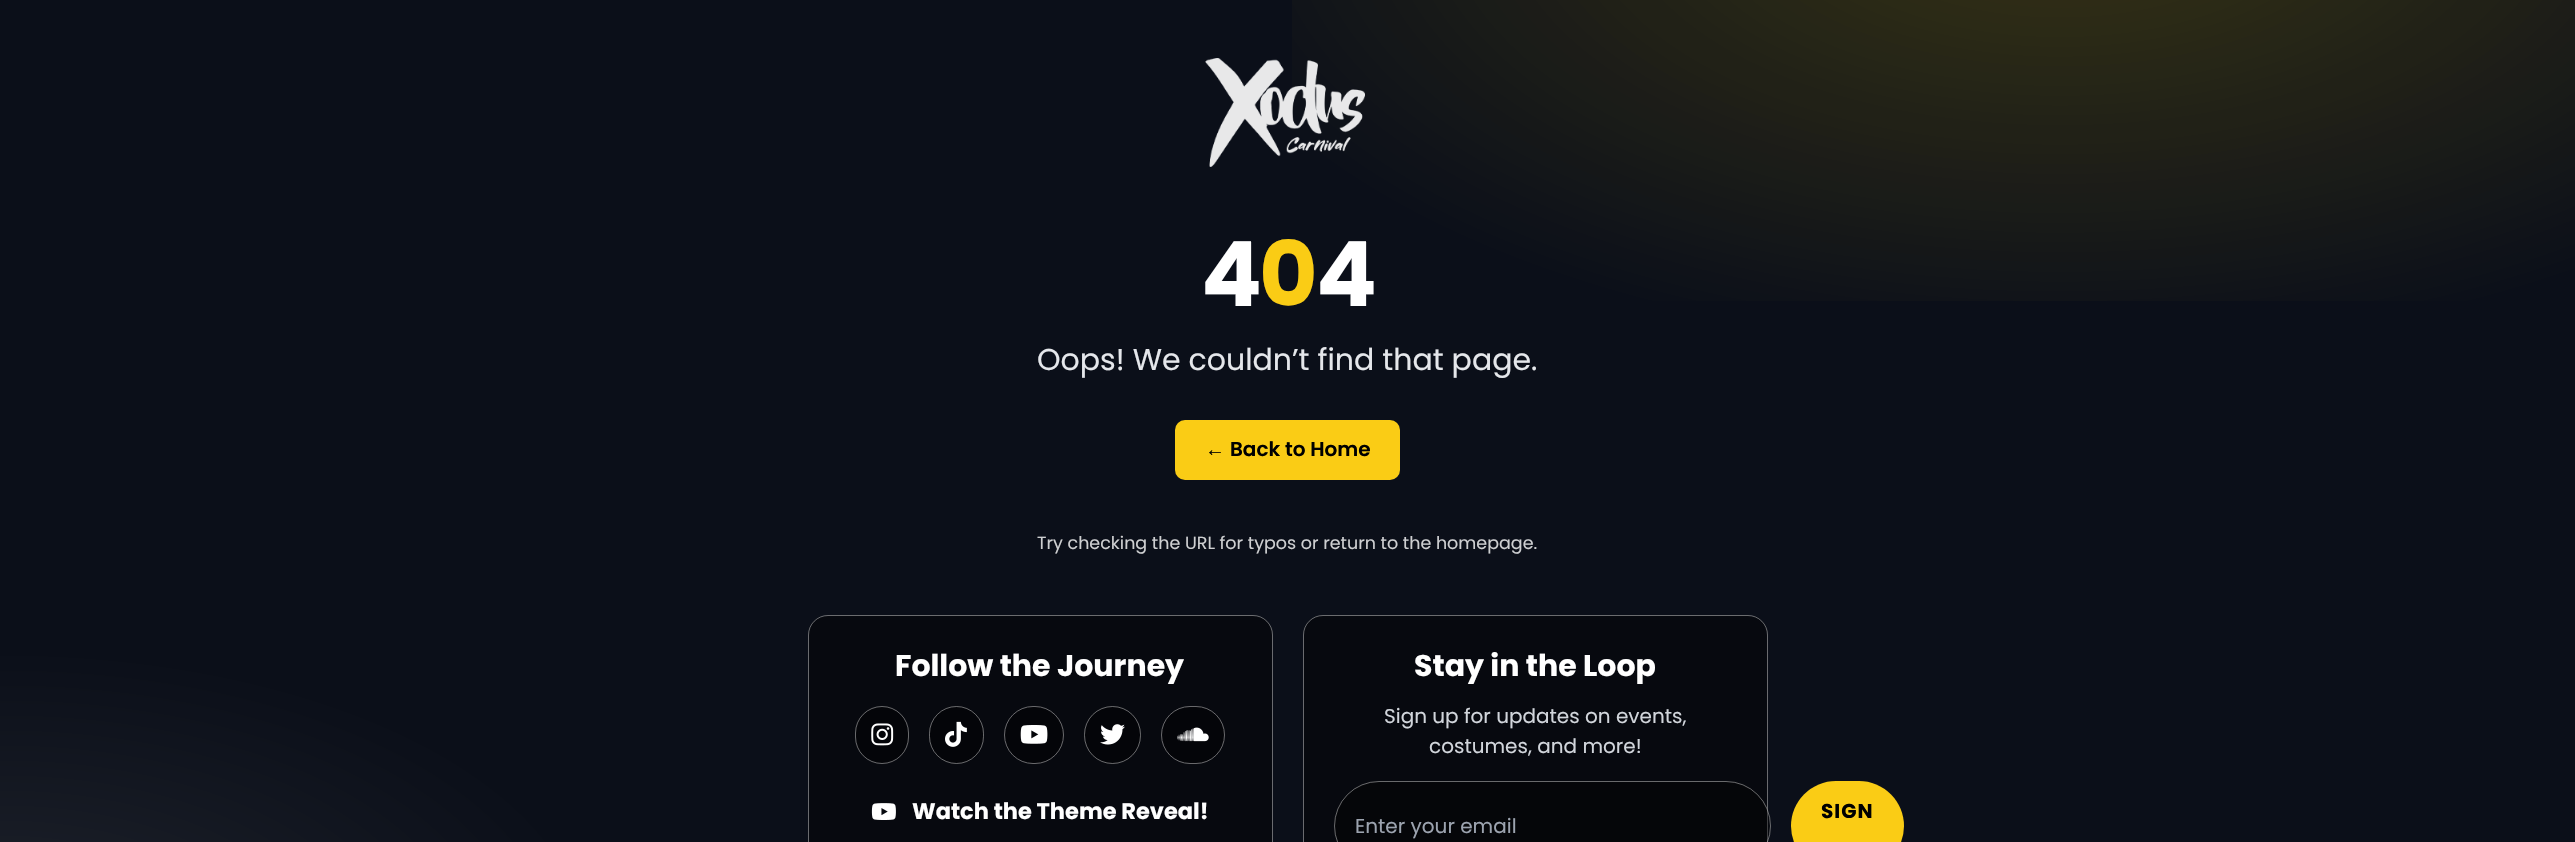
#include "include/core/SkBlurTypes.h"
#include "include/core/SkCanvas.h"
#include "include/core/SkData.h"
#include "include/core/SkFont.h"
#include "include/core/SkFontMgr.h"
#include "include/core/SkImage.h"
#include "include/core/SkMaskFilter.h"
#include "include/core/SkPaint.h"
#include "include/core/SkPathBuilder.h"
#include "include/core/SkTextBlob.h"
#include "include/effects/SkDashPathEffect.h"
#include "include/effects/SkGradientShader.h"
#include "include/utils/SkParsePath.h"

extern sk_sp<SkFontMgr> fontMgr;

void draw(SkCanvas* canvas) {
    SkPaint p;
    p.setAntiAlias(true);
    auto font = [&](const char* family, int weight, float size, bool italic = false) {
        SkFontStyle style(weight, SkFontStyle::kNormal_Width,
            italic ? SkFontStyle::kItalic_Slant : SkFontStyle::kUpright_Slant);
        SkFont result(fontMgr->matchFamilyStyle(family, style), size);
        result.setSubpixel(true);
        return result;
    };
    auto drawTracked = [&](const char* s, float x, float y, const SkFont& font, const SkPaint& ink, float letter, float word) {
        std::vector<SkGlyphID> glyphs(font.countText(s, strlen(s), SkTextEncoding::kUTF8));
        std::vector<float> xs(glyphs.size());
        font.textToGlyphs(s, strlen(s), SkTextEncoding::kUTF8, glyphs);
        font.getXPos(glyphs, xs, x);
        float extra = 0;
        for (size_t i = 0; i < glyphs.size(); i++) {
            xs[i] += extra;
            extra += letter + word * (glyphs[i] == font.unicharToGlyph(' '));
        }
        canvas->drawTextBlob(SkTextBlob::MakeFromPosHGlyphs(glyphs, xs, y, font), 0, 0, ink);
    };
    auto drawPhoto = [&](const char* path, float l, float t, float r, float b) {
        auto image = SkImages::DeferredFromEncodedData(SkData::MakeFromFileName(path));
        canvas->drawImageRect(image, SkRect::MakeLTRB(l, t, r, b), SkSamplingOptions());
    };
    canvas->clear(0xFFFFFFFF);
    {
        const SkColor colors[] = {0xFF1F232C, 0xFF0B0F19};
        const float stops[] = {0, 0.6f};
        SkMatrix m = SkMatrix::Translate(0, 948).preScale(1000, 500);
        p.setShader(SkGradientShader::MakeRadial({0, 0}, 1, colors, stops, 2, SkTileMode::kClamp, 0, &m));
        p.setAlpha(255);
    }
    canvas->drawRect(SkRect::MakeLTRB(0, 0, 2575, 842), p);
    {
        const SkColor colors[] = {0x2EFFD700, 0x00FFD700};
        const float stops[] = {0, 0.6f};
        SkMatrix m = SkMatrix::Translate(2060, -95).preScale(1500, 750);
        p.setShader(SkGradientShader::MakeRadial({0, 0}, 1, colors, stops, 2, SkTileMode::kClamp, 0, &m));
        p.setAlpha(255);
    }
    canvas->drawRect(SkRect::MakeLTRB(1292, 0, 2575, 301), p);
    drawPhoto("media/1.png", 1205, 58, 1365, 167);
    auto font1 = font("Poppins", 700, 90);
    p.setShader(nullptr);
    p.setColor(0xFFFFFFFF);
    drawTracked("4", 1201, 306, font1, p, -2, 0);
    p.setColor(0xFFFACC15);
    drawTracked("0", 1259, 306, font1, p, -2, 0);
    p.setColor(0xFFFFFFFF);
    drawTracked("4", 1316, 306, font1, p, -2, 0);
    auto font2 = font("Poppins", 400, 30);
    p.setColor(0xFFE5E7EB);
    canvas->drawString("Oops! We couldn’t find that page.", 1037, 370, font2, p);
    p.setColor(0xFFFACC15);
    canvas->drawRoundRect(SkRect::MakeLTRB(1175, 420, 1400, 480), 10, 10, p);
    auto font3 = font("Liberation Sans", 700, 20);
    p.setColor(0xFF000000);
    canvas->drawString("←", 1205, 456, font3, p);
    auto font4 = font("Poppins", 600, 20);
    canvas->drawString("Back to Home", 1230, 456, font4, p);
    auto font5 = font("Poppins", 400, 17.5f);
    p.setColor(0xFFCECFD1);
    canvas->drawString("Try checking the URL for typos or return to the homepage.", 1037, 549, font5, p);
    p.setColor(0xFF07090F);
    canvas->drawRoundRect(SkRect::MakeLTRB(808, 615, 1273, 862), 20, 20, p);
    p.setStyle(SkPaint::kStroke_Style);
    p.setStrokeWidth(1);
    p.setColor(0x66FFFFFF);
    canvas->drawRoundRect(SkRect::MakeLTRB(808.5f, 615.5f, 1272.5f, 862.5f), 19.5f, 19.5f, p);
    auto font6 = font("Poppins", 700, 30);
    p.setStyle(SkPaint::kFill_Style);
    p.setColor(0xFFFFFFFF);
    canvas->drawString("Follow the Journey", 895, 676, font6, p);
    p.setColor(0xFF040509);
    canvas->drawRoundRect(SkRect::MakeLTRB(855, 706, 909, 764), 27, 27, p);
    p.setStyle(SkPaint::kStroke_Style);
    p.setColor(0x66FFFFFF);
    canvas->drawRoundRect(SkRect::MakeLTRB(855.5f, 706.5f, 908.5f, 763.5f), 26.5f, 26.5f, p);
    drawPhoto("media/2.png", 871, 723, 894, 746);
    p.setStyle(SkPaint::kFill_Style);
    p.setColor(0xFF040509);
    canvas->drawRoundRect(SkRect::MakeLTRB(929, 706, 984, 764), 27.5f, 27.5f, p);
    p.setStyle(SkPaint::kStroke_Style);
    p.setColor(0x66FFFFFF);
    canvas->drawRoundRect(SkRect::MakeLTRB(929.5f, 706.5f, 983.5f, 763.5f), 27, 27, p);
    drawPhoto("media/3.png", 945, 721, 967, 747);
    p.setStyle(SkPaint::kFill_Style);
    p.setColor(0xFF040509);
    canvas->drawRoundRect(SkRect::MakeLTRB(1004.5f, 706.5f, 1063.5f, 763.5f), 28.5f, 28.5f, p);
    p.setStyle(SkPaint::kStroke_Style);
    p.setColor(0xFF69696C);
    canvas->drawRoundRect(SkRect::MakeLTRB(1004.5f, 706.5f, 1063.5f, 763.5f), 28.5f, 28.5f, p);
    drawPhoto("media/4.png", 1020, 725, 1048, 744);
    p.setStyle(SkPaint::kFill_Style);
    p.setColor(0xFF040509);
    canvas->drawRoundRect(SkRect::MakeLTRB(1084, 706, 1141, 764), 28.5f, 28.5f, p);
    p.setStyle(SkPaint::kStroke_Style);
    p.setColor(0x66FFFFFF);
    canvas->drawRoundRect(SkRect::MakeLTRB(1084.5f, 706.5f, 1140.5f, 763.5f), 28, 28, p);
    drawPhoto("media/5.png", 1100, 724, 1125, 745);
    p.setStyle(SkPaint::kFill_Style);
    p.setColor(0xFF040509);
    canvas->drawRoundRect(SkRect::MakeLTRB(1161.5f, 706.5f, 1224.5f, 763.5f), 28.5f, 28.5f, p);
    p.setStyle(SkPaint::kStroke_Style);
    p.setColor(0xFF69696C);
    canvas->drawRoundRect(SkRect::MakeLTRB(1161.5f, 706.5f, 1224.5f, 763.5f), 28.5f, 28.5f, p);
    drawPhoto("media/6.png", 1177, 727, 1209, 742);
    drawPhoto("media/7.png", 871, 803, 896, 820);
    auto font7 = font("Poppins", 700, 22.5f);
    p.setStyle(SkPaint::kFill_Style);
    p.setColor(0xFFFFFFFF);
    canvas->drawString("Watch the Theme Reveal!", 912, 819, font7, p);
    p.setColor(0xFF07090F);
    canvas->drawRoundRect(SkRect::MakeLTRB(1303, 615, 1768, 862), 20, 20, p);
    p.setStyle(SkPaint::kStroke_Style);
    p.setColor(0x66FFFFFF);
    canvas->drawRoundRect(SkRect::MakeLTRB(1303.5f, 615.5f, 1767.5f, 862.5f), 19.5f, 19.5f, p);
    p.setStyle(SkPaint::kFill_Style);
    p.setColor(0xFFFFFFFF);
    canvas->drawString("Stay in the Loop", 1414, 676, font6, p);
    auto font8 = font("Poppins", 400, 20);
    p.setColor(0xFFD1D5DB);
    canvas->drawString("Sign up for updates on events,", 1384, 723, font8, p);
    canvas->drawString("costumes, and more!", 1429, 753, font8, p);
    p.setColor(0xFFFACC15);
    canvas->drawRoundRect(SkRect::MakeLTRB(1791, 781, 1904, 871), 45, 45, p);
    auto font9 = font("Poppins", 700, 20);
    p.setColor(0xFF000000);
    drawTracked("SIGN", 1821, 818, font9, p, 1, 0);
    p.setColor(0x66000000);
    canvas->drawRoundRect(SkRect::MakeLTRB(1334, 781, 1771, 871), 45, 45, p);
    p.setStyle(SkPaint::kStroke_Style);
    p.setColor(0x66FFFFFF);
    canvas->drawRoundRect(SkRect::MakeLTRB(1334.5f, 781.5f, 1770.5f, 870.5f), 44.5f, 44.5f, p);
    p.setStyle(SkPaint::kFill_Style);
    p.setColor(0xFF9CA3AF);
    canvas->drawString("Enter your email", 1355, 833, font8, p);
}
